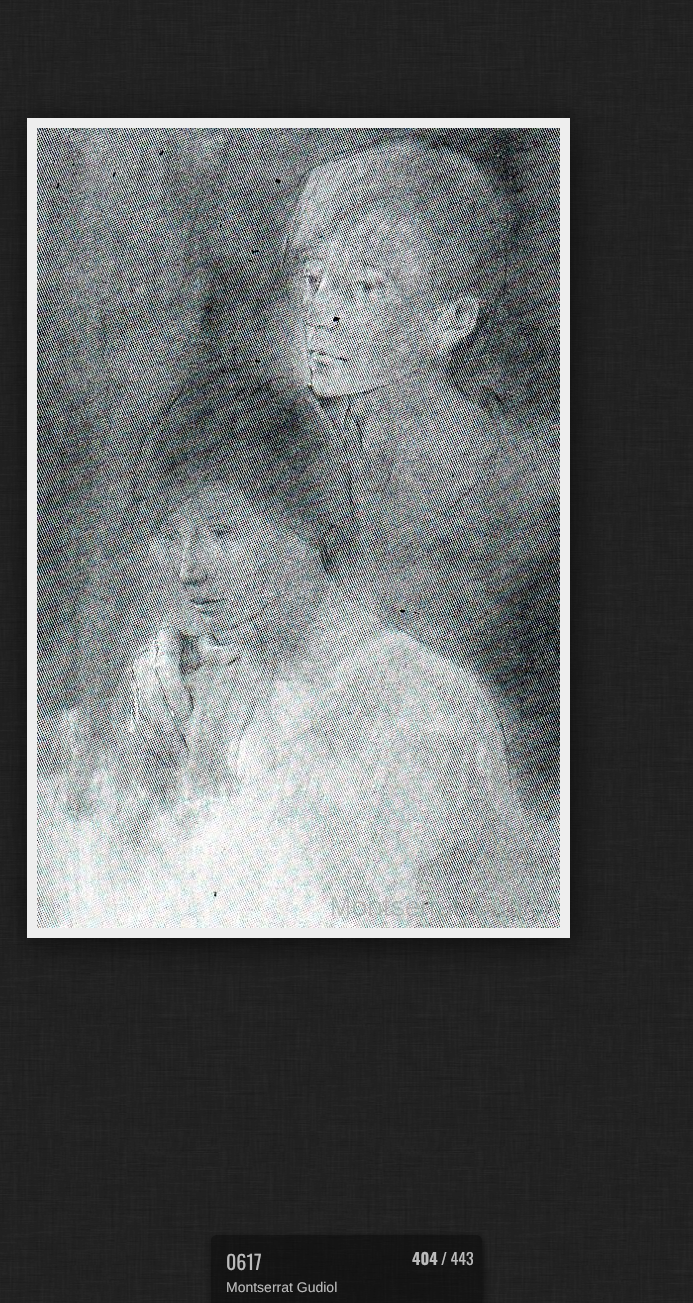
#include "include/core/SkBlurTypes.h"
#include "include/core/SkCanvas.h"
#include "include/core/SkData.h"
#include "include/core/SkFont.h"
#include "include/core/SkFontMgr.h"
#include "include/core/SkImage.h"
#include "include/core/SkMaskFilter.h"
#include "include/core/SkPaint.h"
#include "include/core/SkPathBuilder.h"
#include "include/core/SkTextBlob.h"
#include "include/effects/SkDashPathEffect.h"
#include "include/effects/SkGradientShader.h"
#include "include/utils/SkParsePath.h"

extern sk_sp<SkFontMgr> fontMgr;

void draw(SkCanvas* canvas) {
    SkPaint p;
    p.setAntiAlias(true);
    auto font = [&](const char* family, int weight, float size, bool italic = false) {
        SkFontStyle style(weight, SkFontStyle::kNormal_Width,
            italic ? SkFontStyle::kItalic_Slant : SkFontStyle::kUpright_Slant);
        SkFont result(fontMgr->matchFamilyStyle(family, style), size);
        result.setSubpixel(true);
        return result;
    };
    auto drawPhoto = [&](const char* path, float l, float t, float r, float b) {
        auto image = SkImages::DeferredFromEncodedData(SkData::MakeFromFileName(path));
        canvas->drawImageRect(image, SkRect::MakeLTRB(l, t, r, b), SkSamplingOptions());
    };
    canvas->clear(0xFF222222);
    drawPhoto("media/1.png", 0, 0, 693, 1303);
    p.setColor(0x99000000);
    p.setMaskFilter(SkMaskFilter::MakeBlur(kNormal_SkBlurStyle, 16));
    canvas->drawRect(SkRect::MakeLTRB(30, 124, 573, 944), p);
    p.setMaskFilter(nullptr);
    p.setColor(0xFFEEEEEE);
    canvas->drawRect(SkRect::MakeLTRB(27, 118, 570, 938), p);
    drawPhoto("media/2.png", 37, 128, 560, 928);
    canvas->save();
    canvas->clipPath(SkPathBuilder(SkPathFillType::kEvenOdd).moveTo(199, 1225).lineTo(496, 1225).lineTo(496, 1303).lineTo(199, 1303).close().moveTo(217, 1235).lineTo(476, 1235).cubicTo(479.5f, 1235, 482, 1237.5f, 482, 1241).lineTo(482, 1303).lineTo(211, 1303).lineTo(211, 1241).cubicTo(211, 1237.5f, 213.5f, 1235, 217, 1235).close().detach(), true);
    p.setColor(0x99000000);
    p.setMaskFilter(SkMaskFilter::MakeBlur(kNormal_SkBlurStyle, 4));
    canvas->drawRoundRect(SkRect::MakeLTRB(212, 1238, 483, 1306), 6, 6, p);
    p.setMaskFilter(nullptr);
    canvas->restore();
    p.setColor(0x66000000);
    canvas->drawPath(SkPathBuilder().moveTo(217, 1235).lineTo(476, 1235).cubicTo(479.5f, 1235, 482, 1237.5f, 482, 1241).lineTo(482, 1303).lineTo(211, 1303).lineTo(211, 1241).cubicTo(211, 1237.5f, 213.5f, 1235, 217, 1235).close().detach(), p);
    auto font1 = font("Oswald", 400, 20);
    p.setColor(0xFFBBBBBB);
    canvas->drawString("0617", 226, 1270, font1, p);
    auto font2 = font("Liberation Sans", 400, 14);
    canvas->drawString("Montserrat Gudiol", 226, 1292, font2, p);
    auto font3 = font("Oswald", 700, 16);
    canvas->drawString("404", 412, 1265, font3, p);
    auto font4 = font("Oswald", 400, 16);
    canvas->drawString("/ 443", 441, 1265, font4, p);
}
